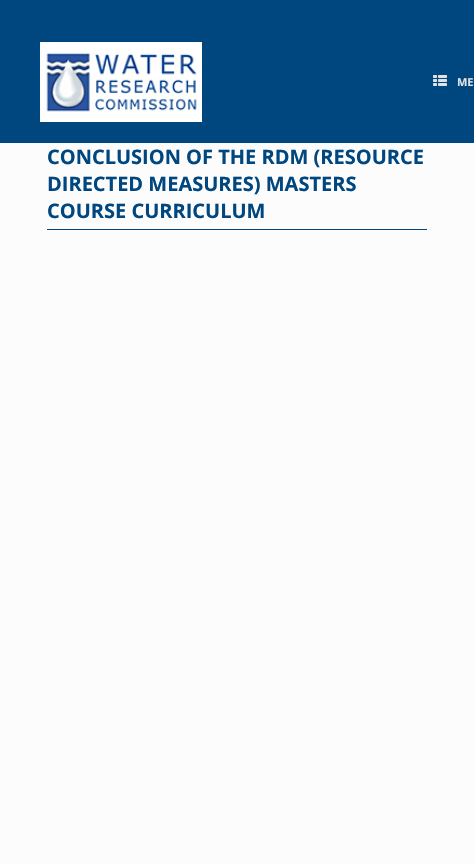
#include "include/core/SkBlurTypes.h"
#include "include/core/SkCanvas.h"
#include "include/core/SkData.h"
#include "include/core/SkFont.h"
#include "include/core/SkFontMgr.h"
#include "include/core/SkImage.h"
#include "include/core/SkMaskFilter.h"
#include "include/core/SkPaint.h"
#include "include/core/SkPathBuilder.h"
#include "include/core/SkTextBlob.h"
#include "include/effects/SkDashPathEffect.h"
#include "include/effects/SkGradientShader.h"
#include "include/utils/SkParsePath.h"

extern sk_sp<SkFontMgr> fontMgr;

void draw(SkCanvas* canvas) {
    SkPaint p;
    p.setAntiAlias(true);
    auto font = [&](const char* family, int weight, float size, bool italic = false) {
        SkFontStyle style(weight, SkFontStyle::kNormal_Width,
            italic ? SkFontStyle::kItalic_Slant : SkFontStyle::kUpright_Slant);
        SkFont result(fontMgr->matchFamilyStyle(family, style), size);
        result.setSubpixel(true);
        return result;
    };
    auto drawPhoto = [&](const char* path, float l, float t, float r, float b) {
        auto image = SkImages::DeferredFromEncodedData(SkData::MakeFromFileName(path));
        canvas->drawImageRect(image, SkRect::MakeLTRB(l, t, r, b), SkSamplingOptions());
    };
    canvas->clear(0xFF00467F);
    drawPhoto("media/1.png", 40, 42, 202, 122);
    drawPhoto("media/2.png", 433, 75, 447, 86);
    auto font1 = font("Open Sans", 700, 11);
    p.setColor(0xFFE2E2E2);
    canvas->drawString("ME", 457, 86, font1, p);
    p.setColor(0xFFFCFCFC);
    canvas->drawRect(SkRect::MakeLTRB(0, 143, 474, 864), p);
    p.setColor(0xFF00467F);
    canvas->drawRect(SkRect::MakeLTRB(47, 229, 427, 230), p);
    auto font2 = font("Open Sans", 700, 20);
    {
        const struct { const char* s; float x, y; } items[] = {
            {"CONCLUSION OF THE RDM (RESOURCE", 47, 164},
            {"DIRECTED MEASURES) MASTERS", 47, 191},
            {"COURSE CURRICULUM", 47, 218},
        };
        for (auto [s, x, y] : items) {
            canvas->drawString(s, x, y, font2, p);
        }
    }
}
